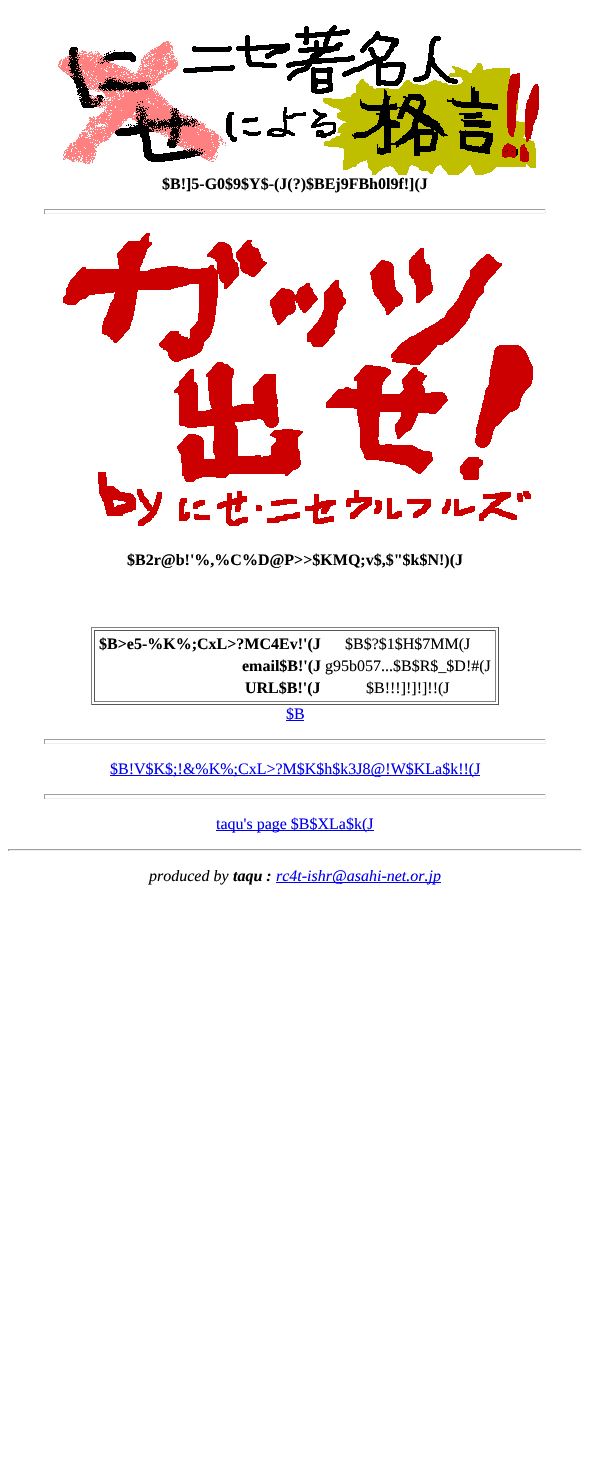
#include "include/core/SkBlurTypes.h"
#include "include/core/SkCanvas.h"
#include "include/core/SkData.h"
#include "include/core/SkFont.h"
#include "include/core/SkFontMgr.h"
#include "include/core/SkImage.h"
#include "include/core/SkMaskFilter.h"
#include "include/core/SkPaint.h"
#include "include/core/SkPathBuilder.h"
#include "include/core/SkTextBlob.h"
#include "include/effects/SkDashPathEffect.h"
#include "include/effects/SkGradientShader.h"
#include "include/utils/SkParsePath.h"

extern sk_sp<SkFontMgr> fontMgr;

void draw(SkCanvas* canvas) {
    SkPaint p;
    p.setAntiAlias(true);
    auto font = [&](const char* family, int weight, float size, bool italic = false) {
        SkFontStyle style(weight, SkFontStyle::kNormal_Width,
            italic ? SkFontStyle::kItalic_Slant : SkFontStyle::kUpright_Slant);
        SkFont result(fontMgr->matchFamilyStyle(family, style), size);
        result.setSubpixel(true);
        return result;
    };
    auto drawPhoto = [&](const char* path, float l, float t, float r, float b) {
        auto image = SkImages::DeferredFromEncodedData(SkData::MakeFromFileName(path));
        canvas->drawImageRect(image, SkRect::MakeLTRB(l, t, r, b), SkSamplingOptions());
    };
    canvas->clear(0xFFFFFFFF);
    drawPhoto("media/1.png", 58, 25, 539, 175);
    auto font1 = font("Liberation Serif", 700, 16);
    p.setColor(0xFF000000);
    canvas->drawString("$B!]5-G0$9$Y$-(J(?)$BEj9FBh0l9f!](J", 162, 189, font1, p);
    {
        const struct { float l, t, r, b; SkColor color; } items[] = {
            {44, 209, 546, 210, 0xFF9F9F9F},
            {545, 209, 546, 214, 0xFFEEEEEE},
            {44, 213, 546, 214, 0xFFEEEEEE},
            {44, 209, 45, 214, 0xFF9F9F9F},
        };
        for (auto [l, t, r, b, color] : items) {
            p.setColor(color);
            canvas->drawRect(SkRect::MakeLTRB(l, t, r, b), p);
        }
    }
    drawPhoto("media/2.png", 63, 233, 533, 526);
    p.setColor(0xFF000000);
    canvas->drawString("$B2r@b!'%,%C%D@P>>$KMQ;v$,$\"$k$N!)(J", 127, 565, font1, p);
    {
        const struct { float l, t, r, b; SkColor color; } items[] = {
            {91, 627, 499, 628, 0xFF808080},
            {498, 627, 499, 705, 0xFF555555},
            {91, 704, 499, 705, 0xFF555555},
            {91, 627, 92, 705, 0xFF808080},
            {94, 630, 496, 631, 0xFF555555},
            {495, 630, 496, 702, 0xFF808080},
            {94, 701, 496, 702, 0xFF808080},
            {94, 630, 95, 702, 0xFF555555},
        };
        for (auto [l, t, r, b, color] : items) {
            p.setColor(color);
            canvas->drawRect(SkRect::MakeLTRB(l, t, r, b), p);
        }
    }
    p.setColor(0xFF000000);
    canvas->drawString("$B>e5-%K%;CxL>?MC4Ev!'(J", 99, 649, font1, p);
    auto font2 = font("Liberation Serif", 400, 16);
    canvas->drawString("$B$?$1$H$7MM(J", 345, 649, font2, p);
    canvas->drawString("email$B!'(J", 242, 671, font1, p);
    canvas->drawString("g95b057...$B$R$_$D!#(J", 325, 671, font2, p);
    canvas->drawString("URL$B!'(J", 245, 693, font1, p);
    canvas->drawString("$B!!!]!]!]!!(J", 366, 693, font2, p);
    p.setColor(0xFF0000EE);
    canvas->drawRect(SkRect::MakeLTRB(286, 720, 304, 721), p);
    canvas->drawString("$B", 286, 719, font2, p);
    {
        const struct { float l, t, r, b; SkColor color; } items[] = {
            {44, 739, 546, 740, 0xFF9F9F9F},
            {545, 739, 546, 744, 0xFFEEEEEE},
            {44, 743, 546, 744, 0xFFEEEEEE},
            {44, 739, 45, 744, 0xFF9F9F9F},
            {110, 775, 480, 776, 0xFF0000EE},
        };
        for (auto [l, t, r, b, color] : items) {
            p.setColor(color);
            canvas->drawRect(SkRect::MakeLTRB(l, t, r, b), p);
        }
    }
    canvas->drawString("$B!V$K$;!&%K%;CxL>?M$K$h$k3J8@!W$KLa$k!!(J", 110, 774, font2, p);
    {
        const struct { float l, t, r, b; SkColor color; } items[] = {
            {44, 794, 546, 795, 0xFF9F9F9F},
            {545, 794, 546, 799, 0xFFEEEEEE},
            {44, 798, 546, 799, 0xFFEEEEEE},
            {44, 794, 45, 799, 0xFF9F9F9F},
            {216, 830, 374, 831, 0xFF0000EE},
        };
        for (auto [l, t, r, b, color] : items) {
            p.setColor(color);
            canvas->drawRect(SkRect::MakeLTRB(l, t, r, b), p);
        }
    }
    canvas->drawString("taqu's page $B$XLa$k(J", 216, 829, font2, p);
    {
        const struct { float l, t, r, b; SkColor color; } items[] = {
            {8, 849, 582, 850, 0xFF9F9F9F},
            {581, 849, 582, 851, 0xFFEEEEEE},
            {8, 850, 582, 851, 0xFFEEEEEE},
            {8, 849, 9, 851, 0xFF9F9F9F},
        };
        for (auto [l, t, r, b, color] : items) {
            p.setColor(color);
            canvas->drawRect(SkRect::MakeLTRB(l, t, r, b), p);
        }
    }
    auto font3 = font("Liberation Serif", 400, 16, true);
    p.setColor(0xFF000000);
    canvas->drawString("produced by", 149, 881, font3, p);
    auto font4 = font("Liberation Serif", 700, 16, true);
    canvas->drawString("taqu :", 233, 881, font4, p);
    p.setColor(0xFF0000EE);
    canvas->drawRect(SkRect::MakeLTRB(276, 882, 441, 883), p);
    canvas->drawString("rc4t-ishr@asahi-net.or.jp", 276, 881, font3, p);
}
